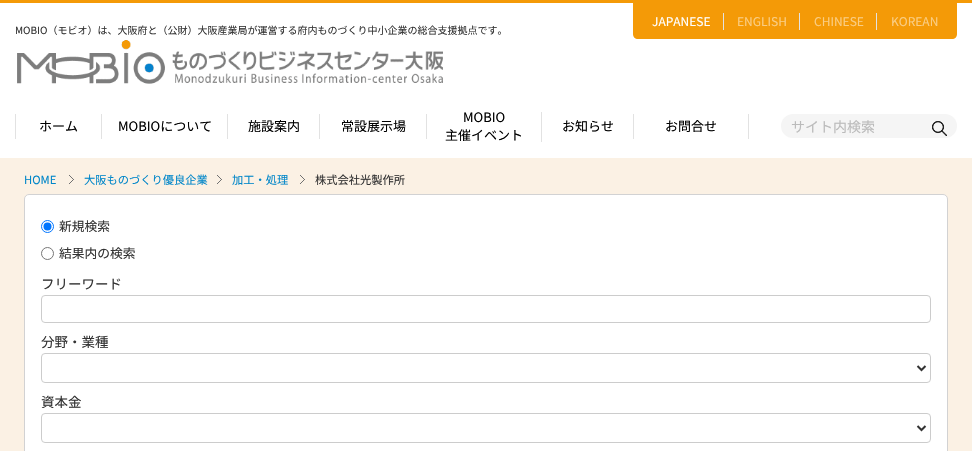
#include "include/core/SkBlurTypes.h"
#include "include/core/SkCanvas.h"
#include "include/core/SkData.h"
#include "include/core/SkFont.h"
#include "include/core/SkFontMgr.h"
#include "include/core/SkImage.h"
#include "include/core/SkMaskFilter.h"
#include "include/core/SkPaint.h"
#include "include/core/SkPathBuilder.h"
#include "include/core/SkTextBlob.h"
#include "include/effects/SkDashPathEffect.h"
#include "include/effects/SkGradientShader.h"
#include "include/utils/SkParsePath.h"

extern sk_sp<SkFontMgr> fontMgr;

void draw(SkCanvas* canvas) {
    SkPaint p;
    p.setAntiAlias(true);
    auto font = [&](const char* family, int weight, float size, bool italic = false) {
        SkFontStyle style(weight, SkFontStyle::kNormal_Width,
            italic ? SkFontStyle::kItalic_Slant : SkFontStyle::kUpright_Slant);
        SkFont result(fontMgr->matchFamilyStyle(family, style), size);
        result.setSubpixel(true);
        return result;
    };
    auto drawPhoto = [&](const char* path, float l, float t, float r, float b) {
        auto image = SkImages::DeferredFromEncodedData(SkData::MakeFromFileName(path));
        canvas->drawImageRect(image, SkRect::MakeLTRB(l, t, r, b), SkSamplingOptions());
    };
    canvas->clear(0xFFFBF1E4);
    p.setColor(0xFFFFFFFF);
    canvas->drawRect(SkRect::MakeLTRB(0, 3, 972, 158), p);
    p.setColor(0xFFF49A07);
    canvas->drawRect(SkRect::MakeLTRB(0, 0, 972, 3), p);
    canvas->drawPath(SkPathBuilder().moveTo(633, 3).lineTo(957, 3).lineTo(957, 34).cubicTo(957, 37, 955, 39, 952, 39).lineTo(638, 39).cubicTo(635, 39, 633, 37, 633, 34).close().detach(), p);
    p.setColor(0xFFE2E2E2);
    canvas->drawRect(SkRect::MakeLTRB(723, 13, 724, 30), p);
    auto font1 = font("Noto Sans JP", 400, 12);
    p.setColor(0xFFFFFFFF);
    canvas->drawString("JAPANESE", 652, 26, font1, p);
    p.setColor(0xFFE2E2E2);
    canvas->drawRect(SkRect::MakeLTRB(799, 13, 800, 30), p);
    p.setColor(0xFFFACD83);
    canvas->drawString("ENGLISH", 737, 26, font1, p);
    p.setColor(0xFFE2E2E2);
    canvas->drawRect(SkRect::MakeLTRB(876, 13, 877, 30), p);
    p.setColor(0xFFFACD83);
    canvas->drawString("CHINESE", 814, 26, font1, p);
    canvas->drawString("KOREAN", 891, 26, font1, p);
    auto font2 = font("Noto Sans JP", 400, 10);
    p.setColor(0xFF333333);
    canvas->drawString("MOBIO（モビオ）は、大阪府と（公財）大阪産業局が運営する府内ものづくり中小企業の総合支援拠点です。", 15, 34, font2, p);
    drawPhoto("media/1.png", 17, 40, 443, 84);
    p.setColor(0xFFE2E2E2);
    canvas->drawRect(SkRect::MakeLTRB(15, 114, 16, 139), p);
    auto font3 = font("Noto Sans JP", 400, 13);
    p.setColor(0xFF000000);
    canvas->drawString("ホーム", 39, 131, font3, p);
    p.setColor(0xFFE2E2E2);
    canvas->drawRect(SkRect::MakeLTRB(101, 114, 102, 139), p);
    p.setColor(0xFF000000);
    canvas->drawString("MOBIOについて", 118, 131, font3, p);
    p.setColor(0xFFE2E2E2);
    canvas->drawRect(SkRect::MakeLTRB(227, 114, 228, 139), p);
    p.setColor(0xFF000000);
    canvas->drawString("施設案内", 248, 131, font3, p);
    p.setColor(0xFFE2E2E2);
    canvas->drawRect(SkRect::MakeLTRB(319, 114, 320, 139), p);
    p.setColor(0xFF000000);
    canvas->drawString("常設展示場", 341, 131, font3, p);
    p.setColor(0xFFE2E2E2);
    canvas->drawRect(SkRect::MakeLTRB(426, 114, 427, 139), p);
    p.setColor(0xFF000000);
    canvas->drawString("MOBIO", 463, 122, font3, p);
    p.setColor(0xFFE2E2E2);
    canvas->drawRect(SkRect::MakeLTRB(541, 112, 542, 142), p);
    p.setColor(0xFF000000);
    canvas->drawString("主催イベント", 445, 140, font3, p);
    canvas->drawString("お知らせ", 562, 131, font3, p);
    p.setColor(0xFFE2E2E2);
    canvas->drawRect(SkRect::MakeLTRB(633, 114, 634, 139), p);
    p.setColor(0xFF000000);
    canvas->drawString("お問合せ", 665, 131, font3, p);
    p.setColor(0xFFE2E2E2);
    canvas->drawRect(SkRect::MakeLTRB(748, 114, 749, 139), p);
    p.setColor(0xFFF5F5F5);
    canvas->drawRoundRect(SkRect::MakeLTRB(781, 114, 957, 138), 12, 12, p);
    auto font4 = font("Noto Sans JP", 400, 14);
    p.setColor(0xFFBBBBBB);
    canvas->drawString("サイト内検索", 791, 132, font4, p);
    drawPhoto("media/2.png", 932, 121, 947, 136);
    auto font5 = font("Noto Sans JP", 400, 11.25f);
    p.setColor(0xFF0086C9);
    canvas->drawString("HOME", 24, 184, font5, p);
    drawPhoto("media/3.png", 69, 175, 74, 184);
    canvas->drawString("大阪ものづくり優良企業", 84, 184, font5, p);
    drawPhoto("media/3.png", 217, 175, 222, 184);
    canvas->drawString("加工・処理", 232, 184, font5, p);
    drawPhoto("media/3.png", 300, 175, 305, 184);
    p.setColor(0xFF333333);
    canvas->drawString("株式会社光製作所", 315, 184, font5, p);
    p.setColor(0xFFFFFFFF);
    canvas->drawRoundRect(SkRect::MakeLTRB(24.5f, 194.5f, 947.5f, 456.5f), 4.5f, 4.5f, p);
    p.setStyle(SkPaint::kStroke_Style);
    p.setStrokeWidth(1);
    p.setColor(0xFFD2D2D3);
    canvas->drawRoundRect(SkRect::MakeLTRB(24.5f, 194.5f, 947.5f, 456.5f), 4.5f, 4.5f, p);
    p.setColor(0xFF0075FF);
    canvas->drawCircle(47.5f, 226.5f, 6, p);
    p.setStyle(SkPaint::kFill_Style);
    canvas->drawCircle(47.5f, 226.5f, 4, p);
    auto font6 = font("Noto Sans JP", 400, 12.75f);
    p.setColor(0xFF333333);
    canvas->drawString("新規検索", 59, 231, font6, p);
    p.setStyle(SkPaint::kStroke_Style);
    p.setColor(0xFF767676);
    canvas->drawCircle(47.5f, 253.5f, 6, p);
    p.setStyle(SkPaint::kFill_Style);
    p.setColor(0xFF333333);
    canvas->drawString("結果内の検索", 59, 258, font6, p);
    auto font7 = font("Noto Sans JP", 400, 13.5f);
    canvas->drawString("フリーワード", 41, 289, font7, p);
    p.setStyle(SkPaint::kStroke_Style);
    p.setColor(0xFFCCCCCC);
    canvas->drawRoundRect(SkRect::MakeLTRB(41.5f, 295.5f, 930.5f, 322.5f), 3.5f, 3.5f, p);
    p.setStyle(SkPaint::kFill_Style);
    p.setColor(0xFF333333);
    canvas->drawString("分野・業種", 41, 347, font7, p);
    p.setStyle(SkPaint::kStroke_Style);
    p.setColor(0xFFCCCCCC);
    canvas->drawRoundRect(SkRect::MakeLTRB(41.5f, 353.5f, 930.5f, 382.5f), 3.5f, 3.5f, p);
    p.setStrokeWidth(2);
    p.setColor(0xFF333333);
    canvas->drawPath(SkPathBuilder().moveTo(917.5f, 366).lineTo(921.5f, 370).lineTo(925.5f, 366).detach(), p);
    p.setStyle(SkPaint::kFill_Style);
    canvas->drawString("資本金", 41, 407, font7, p);
    p.setStyle(SkPaint::kStroke_Style);
    p.setStrokeWidth(1);
    p.setColor(0xFFCCCCCC);
    canvas->drawRoundRect(SkRect::MakeLTRB(41.5f, 413.5f, 930.5f, 442.5f), 3.5f, 3.5f, p);
    p.setStrokeWidth(2);
    p.setColor(0xFF333333);
    canvas->drawPath(SkPathBuilder().moveTo(917.5f, 426).lineTo(921.5f, 430).lineTo(925.5f, 426).detach(), p);
}
